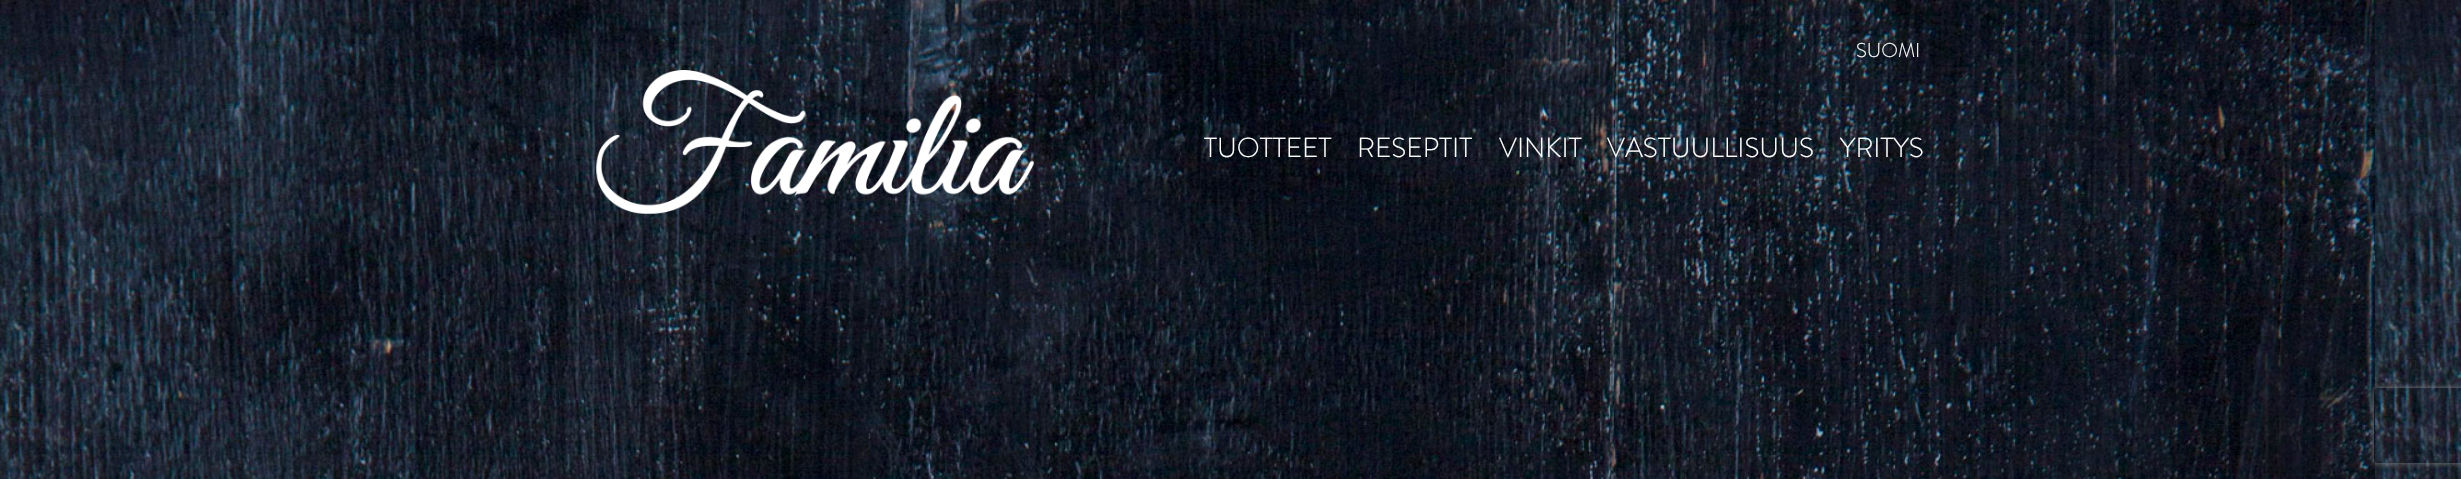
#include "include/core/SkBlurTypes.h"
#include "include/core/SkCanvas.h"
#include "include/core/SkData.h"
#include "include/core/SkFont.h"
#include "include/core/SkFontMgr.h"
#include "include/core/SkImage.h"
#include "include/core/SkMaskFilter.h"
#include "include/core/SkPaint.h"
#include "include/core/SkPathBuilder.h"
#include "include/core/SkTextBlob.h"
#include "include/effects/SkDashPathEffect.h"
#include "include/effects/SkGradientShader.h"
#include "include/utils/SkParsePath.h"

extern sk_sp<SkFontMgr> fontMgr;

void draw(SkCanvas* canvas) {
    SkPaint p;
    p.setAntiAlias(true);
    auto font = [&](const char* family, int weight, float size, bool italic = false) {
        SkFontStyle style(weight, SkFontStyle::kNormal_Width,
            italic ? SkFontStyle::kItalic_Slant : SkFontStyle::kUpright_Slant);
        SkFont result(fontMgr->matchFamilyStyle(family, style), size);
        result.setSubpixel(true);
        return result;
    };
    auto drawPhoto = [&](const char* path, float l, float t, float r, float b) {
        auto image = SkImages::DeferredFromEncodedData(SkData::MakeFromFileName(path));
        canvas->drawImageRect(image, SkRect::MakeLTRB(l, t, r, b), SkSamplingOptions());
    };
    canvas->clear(0xFFFFFFFF);
    drawPhoto("media/1.png", 0, 0, 2461, 479);
    auto font1 = font("Brandon Grotesque", 300, 20);
    p.setColor(0xFFFFFFFF);
    canvas->drawString("SUOMI", 1856, 57, font1, p);
    drawPhoto("media/2.png", 596, 70, 1034, 214);
    auto font2 = font("Brandon Grotesque", 300, 27.5f);
    {
        const struct { const char* s; float x, y; } items[] = {
            {"TUOTTEET", 1204, 157},
            {"RESEPTIT", 1357, 157},
            {"VINKIT", 1499, 157},
            {"VASTUULLISUUS", 1607, 157},
            {"YRITYS", 1840, 157},
        };
        for (auto [s, x, y] : items) {
            canvas->drawString(s, x, y, font2, p);
        }
    }
    canvas->save();
    canvas->clipPath(SkPathBuilder(SkPathFillType::kEvenOdd).moveTo(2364, 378).lineTo(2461, 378).lineTo(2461, 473).lineTo(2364, 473).close().moveTo(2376.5f, 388).lineTo(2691.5f, 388).cubicTo(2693, 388, 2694, 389, 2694, 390.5f).lineTo(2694, 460.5f).cubicTo(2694, 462, 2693, 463, 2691.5f, 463).lineTo(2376.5f, 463).cubicTo(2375, 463, 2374, 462, 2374, 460.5f).lineTo(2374, 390.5f).cubicTo(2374, 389, 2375, 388, 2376.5f, 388).close().detach(), true);
    p.setColor(0xFF808080);
    p.setMaskFilter(SkMaskFilter::MakeBlur(kNormal_SkBlurStyle, 3));
    canvas->drawRoundRect(SkRect::MakeLTRB(2374, 388, 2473, 463), 2.5f, 2.5f, p);
    p.setMaskFilter(nullptr);
    canvas->restore();
}
